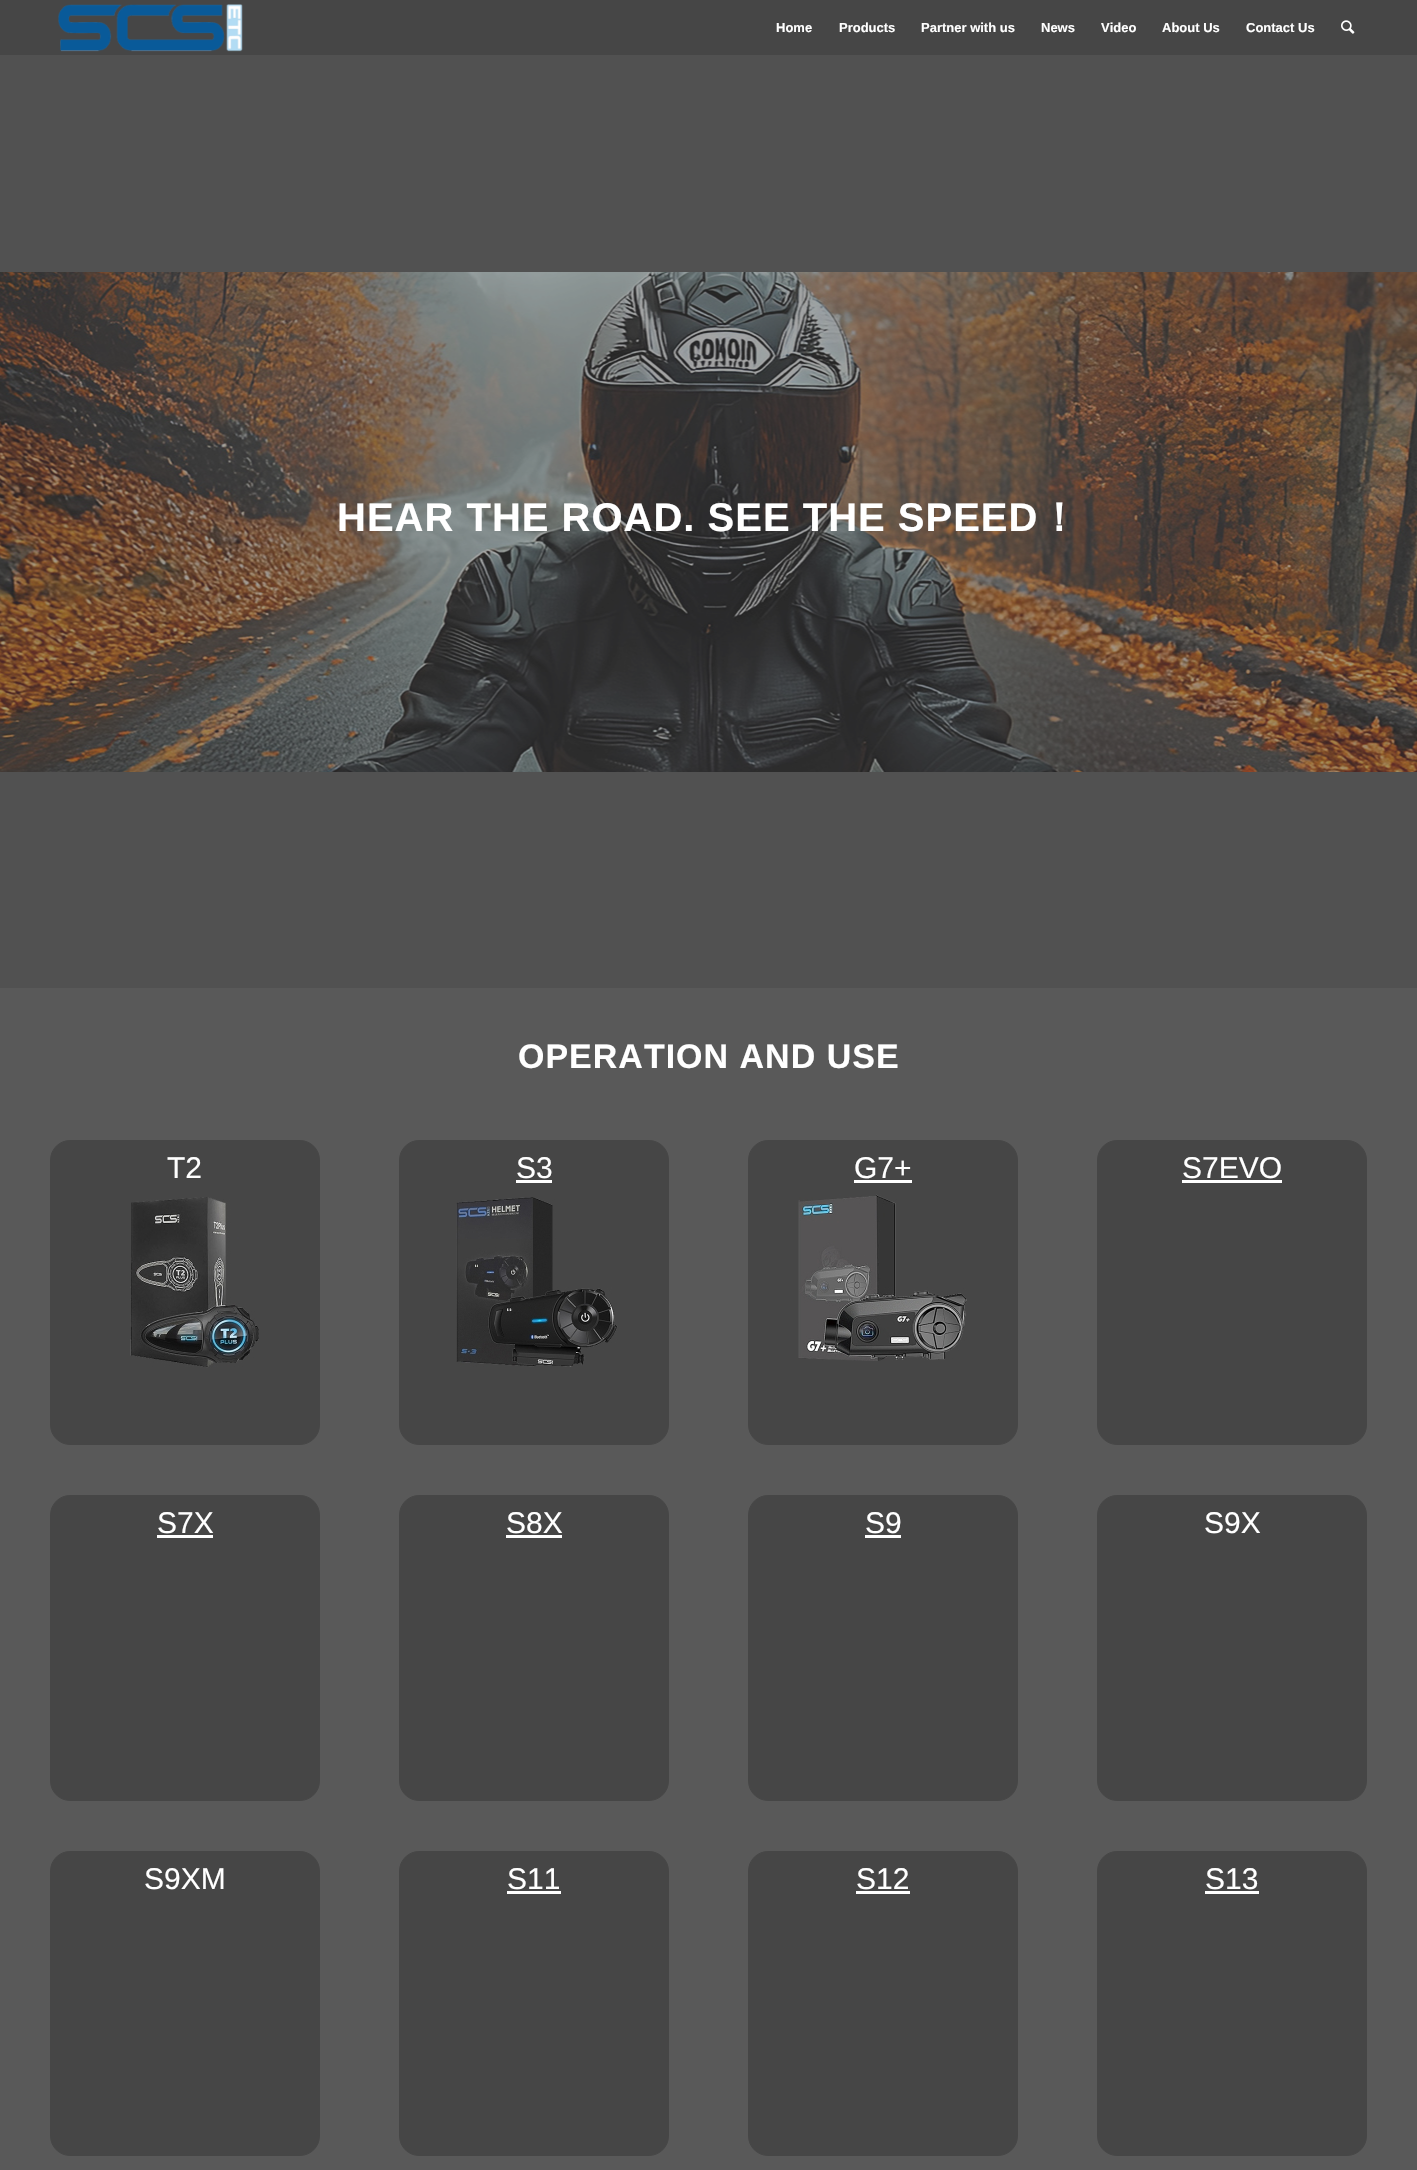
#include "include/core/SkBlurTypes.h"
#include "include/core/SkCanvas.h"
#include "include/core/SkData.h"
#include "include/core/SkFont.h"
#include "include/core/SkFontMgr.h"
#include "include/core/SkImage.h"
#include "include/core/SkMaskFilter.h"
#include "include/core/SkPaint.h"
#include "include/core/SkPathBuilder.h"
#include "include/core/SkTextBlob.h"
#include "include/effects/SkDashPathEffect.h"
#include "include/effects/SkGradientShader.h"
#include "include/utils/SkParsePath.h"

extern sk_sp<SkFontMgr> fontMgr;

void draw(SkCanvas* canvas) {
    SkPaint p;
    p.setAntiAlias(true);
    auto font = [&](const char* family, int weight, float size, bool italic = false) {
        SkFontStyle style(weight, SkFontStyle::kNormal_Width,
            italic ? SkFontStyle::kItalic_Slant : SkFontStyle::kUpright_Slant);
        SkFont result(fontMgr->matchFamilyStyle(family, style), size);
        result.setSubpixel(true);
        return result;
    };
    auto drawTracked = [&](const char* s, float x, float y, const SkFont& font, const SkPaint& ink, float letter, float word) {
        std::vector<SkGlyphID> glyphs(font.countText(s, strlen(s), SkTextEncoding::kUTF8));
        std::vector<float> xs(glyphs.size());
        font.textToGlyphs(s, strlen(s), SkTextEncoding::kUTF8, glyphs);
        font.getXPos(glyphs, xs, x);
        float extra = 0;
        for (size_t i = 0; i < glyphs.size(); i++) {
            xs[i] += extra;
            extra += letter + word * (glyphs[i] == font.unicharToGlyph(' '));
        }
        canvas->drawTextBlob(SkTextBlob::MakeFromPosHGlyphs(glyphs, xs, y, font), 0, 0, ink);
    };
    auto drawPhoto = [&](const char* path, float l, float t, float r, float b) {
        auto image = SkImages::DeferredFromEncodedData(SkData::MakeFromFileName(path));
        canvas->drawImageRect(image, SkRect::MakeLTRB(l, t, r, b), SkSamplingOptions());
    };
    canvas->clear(0xFF595959);
    p.setColor(0xFF515151);
    canvas->drawRect(SkRect::MakeLTRB(0, 55, 1417, 988), p);
    p.setColor(0xFF464646);
    canvas->drawRect(SkRect::MakeLTRB(0, 0, 1417, 55), p);
    drawPhoto("media/1.png", 58, 4, 243, 52);
    auto font1 = font("Liberation Sans", 700, 13);
    p.setColor(0xFFFFFFFF);
    {
        const struct { const char* s; float x, y; } items[] = {
            {"Home", 776, 32},
            {"Products", 839, 32},
            {"Partner with us", 921, 32},
            {"News", 1041, 32},
            {"Video", 1101, 32},
            {"About Us", 1162, 32},
            {"Contact Us", 1246, 32},
        };
        for (auto [s, x, y] : items) {
            canvas->drawString(s, x, y, font1, p);
        }
    }
    drawPhoto("media/2.png", 1341, 20, 1355, 34);
    drawPhoto("media/3.png", 0, 272, 1417, 772);
    auto font2 = font("Liberation Sans", 700, 40);
    drawTracked("HEAR THE ROAD. SEE THE SPEED", 337, 531, font2, p, 1, 0);
    auto font3 = font("WenQuanYi Zen Hei", 700, 40);
    drawTracked("！", 1039, 531, font3, p, 1, 0);
    auto font4 = font("Liberation Sans", 700, 34);
    drawTracked("OPERATION AND USE", 518, 1068, font4, p, 1, 0);
    p.setColor(0xFF464646);
    canvas->drawRoundRect(SkRect::MakeLTRB(50.5f, 1140.5f, 319.5f, 1444.5f), 19.5f, 19.5f, p);
    p.setStyle(SkPaint::kStroke_Style);
    p.setStrokeWidth(1);
    canvas->drawRoundRect(SkRect::MakeLTRB(50.5f, 1140.5f, 319.5f, 1444.5f), 19.5f, 19.5f, p);
    auto font5 = font("Liberation Sans", 400, 30);
    p.setStyle(SkPaint::kFill_Style);
    p.setColor(0xFFFFFFFF);
    canvas->drawString("T2", 167, 1178, font5, p);
    drawPhoto("media/4.png", 130, 1197, 259, 1368);
    p.setColor(0xFF464646);
    canvas->drawRoundRect(SkRect::MakeLTRB(399.5f, 1140.5f, 668.5f, 1444.5f), 19.5f, 19.5f, p);
    p.setStyle(SkPaint::kStroke_Style);
    canvas->drawRoundRect(SkRect::MakeLTRB(399.5f, 1140.5f, 668.5f, 1444.5f), 19.5f, 19.5f, p);
    p.setStyle(SkPaint::kFill_Style);
    p.setColor(0xFFFFFFFF);
    canvas->drawString("S3", 516, 1178, font5, p);
    canvas->drawRect(SkRect::MakeLTRB(516, 1180, 552, 1183), p);
    drawPhoto("media/5.png", 456, 1197, 618, 1367);
    p.setColor(0xFF464646);
    canvas->drawRoundRect(SkRect::MakeLTRB(748.5f, 1140.5f, 1017.5f, 1444.5f), 19.5f, 19.5f, p);
    p.setStyle(SkPaint::kStroke_Style);
    canvas->drawRoundRect(SkRect::MakeLTRB(748.5f, 1140.5f, 1017.5f, 1444.5f), 19.5f, 19.5f, p);
    p.setStyle(SkPaint::kFill_Style);
    p.setColor(0xFFFFFFFF);
    canvas->drawString("G7+", 854, 1178, font5, p);
    canvas->drawRect(SkRect::MakeLTRB(854, 1180, 912, 1183), p);
    drawPhoto("media/6.png", 798, 1194, 967, 1361);
    p.setColor(0xFF464646);
    canvas->drawRoundRect(SkRect::MakeLTRB(1097.5f, 1140.5f, 1366.5f, 1444.5f), 19.5f, 19.5f, p);
    p.setStyle(SkPaint::kStroke_Style);
    canvas->drawRoundRect(SkRect::MakeLTRB(1097.5f, 1140.5f, 1366.5f, 1444.5f), 19.5f, 19.5f, p);
    p.setStyle(SkPaint::kFill_Style);
    p.setColor(0xFFFFFFFF);
    canvas->drawString("S7EVO", 1182, 1178, font5, p);
    canvas->drawRect(SkRect::MakeLTRB(1182, 1180, 1282, 1183), p);
    p.setColor(0xFF464646);
    canvas->drawRoundRect(SkRect::MakeLTRB(50.5f, 1495.5f, 319.5f, 1800.5f), 19.5f, 19.5f, p);
    p.setStyle(SkPaint::kStroke_Style);
    canvas->drawRoundRect(SkRect::MakeLTRB(50.5f, 1495.5f, 319.5f, 1800.5f), 19.5f, 19.5f, p);
    p.setStyle(SkPaint::kFill_Style);
    p.setColor(0xFFFFFFFF);
    canvas->drawString("S7X", 157, 1533, font5, p);
    canvas->drawRect(SkRect::MakeLTRB(157, 1535, 213, 1538), p);
    p.setColor(0xFF464646);
    canvas->drawRoundRect(SkRect::MakeLTRB(399.5f, 1495.5f, 668.5f, 1800.5f), 19.5f, 19.5f, p);
    p.setStyle(SkPaint::kStroke_Style);
    canvas->drawRoundRect(SkRect::MakeLTRB(399.5f, 1495.5f, 668.5f, 1800.5f), 19.5f, 19.5f, p);
    p.setStyle(SkPaint::kFill_Style);
    p.setColor(0xFFFFFFFF);
    canvas->drawString("S8X", 506, 1533, font5, p);
    canvas->drawRect(SkRect::MakeLTRB(506, 1535, 562, 1538), p);
    p.setColor(0xFF464646);
    canvas->drawRoundRect(SkRect::MakeLTRB(748.5f, 1495.5f, 1017.5f, 1800.5f), 19.5f, 19.5f, p);
    p.setStyle(SkPaint::kStroke_Style);
    canvas->drawRoundRect(SkRect::MakeLTRB(748.5f, 1495.5f, 1017.5f, 1800.5f), 19.5f, 19.5f, p);
    p.setStyle(SkPaint::kFill_Style);
    p.setColor(0xFFFFFFFF);
    canvas->drawString("S9", 865, 1533, font5, p);
    canvas->drawRect(SkRect::MakeLTRB(865, 1535, 901, 1538), p);
    p.setColor(0xFF464646);
    canvas->drawRoundRect(SkRect::MakeLTRB(1097.5f, 1495.5f, 1366.5f, 1800.5f), 19.5f, 19.5f, p);
    p.setStyle(SkPaint::kStroke_Style);
    canvas->drawRoundRect(SkRect::MakeLTRB(1097.5f, 1495.5f, 1366.5f, 1800.5f), 19.5f, 19.5f, p);
    p.setStyle(SkPaint::kFill_Style);
    p.setColor(0xFFFFFFFF);
    canvas->drawString("S9X", 1204, 1533, font5, p);
    p.setColor(0xFF464646);
    canvas->drawRoundRect(SkRect::MakeLTRB(50.5f, 1851.5f, 319.5f, 2155.5f), 19.5f, 19.5f, p);
    p.setStyle(SkPaint::kStroke_Style);
    canvas->drawRoundRect(SkRect::MakeLTRB(50.5f, 1851.5f, 319.5f, 2155.5f), 19.5f, 19.5f, p);
    p.setStyle(SkPaint::kFill_Style);
    p.setColor(0xFFFFFFFF);
    canvas->drawString("S9XM", 144, 1889, font5, p);
    p.setColor(0xFF464646);
    canvas->drawRoundRect(SkRect::MakeLTRB(399.5f, 1851.5f, 668.5f, 2155.5f), 19.5f, 19.5f, p);
    p.setStyle(SkPaint::kStroke_Style);
    canvas->drawRoundRect(SkRect::MakeLTRB(399.5f, 1851.5f, 668.5f, 2155.5f), 19.5f, 19.5f, p);
    p.setStyle(SkPaint::kFill_Style);
    p.setColor(0xFFFFFFFF);
    canvas->drawString("S11", 507, 1889, font5, p);
    canvas->drawRect(SkRect::MakeLTRB(507, 1891, 561, 1894), p);
    p.setColor(0xFF464646);
    canvas->drawRoundRect(SkRect::MakeLTRB(748.5f, 1851.5f, 1017.5f, 2155.5f), 19.5f, 19.5f, p);
    p.setStyle(SkPaint::kStroke_Style);
    canvas->drawRoundRect(SkRect::MakeLTRB(748.5f, 1851.5f, 1017.5f, 2155.5f), 19.5f, 19.5f, p);
    p.setStyle(SkPaint::kFill_Style);
    p.setColor(0xFFFFFFFF);
    canvas->drawString("S12", 856, 1889, font5, p);
    canvas->drawRect(SkRect::MakeLTRB(856, 1891, 910, 1894), p);
    p.setColor(0xFF464646);
    canvas->drawRoundRect(SkRect::MakeLTRB(1097.5f, 1851.5f, 1366.5f, 2155.5f), 19.5f, 19.5f, p);
    p.setStyle(SkPaint::kStroke_Style);
    canvas->drawRoundRect(SkRect::MakeLTRB(1097.5f, 1851.5f, 1366.5f, 2155.5f), 19.5f, 19.5f, p);
    p.setStyle(SkPaint::kFill_Style);
    p.setColor(0xFFFFFFFF);
    canvas->drawString("S13", 1205, 1889, font5, p);
    canvas->drawRect(SkRect::MakeLTRB(1205, 1891, 1259, 1894), p);
}
